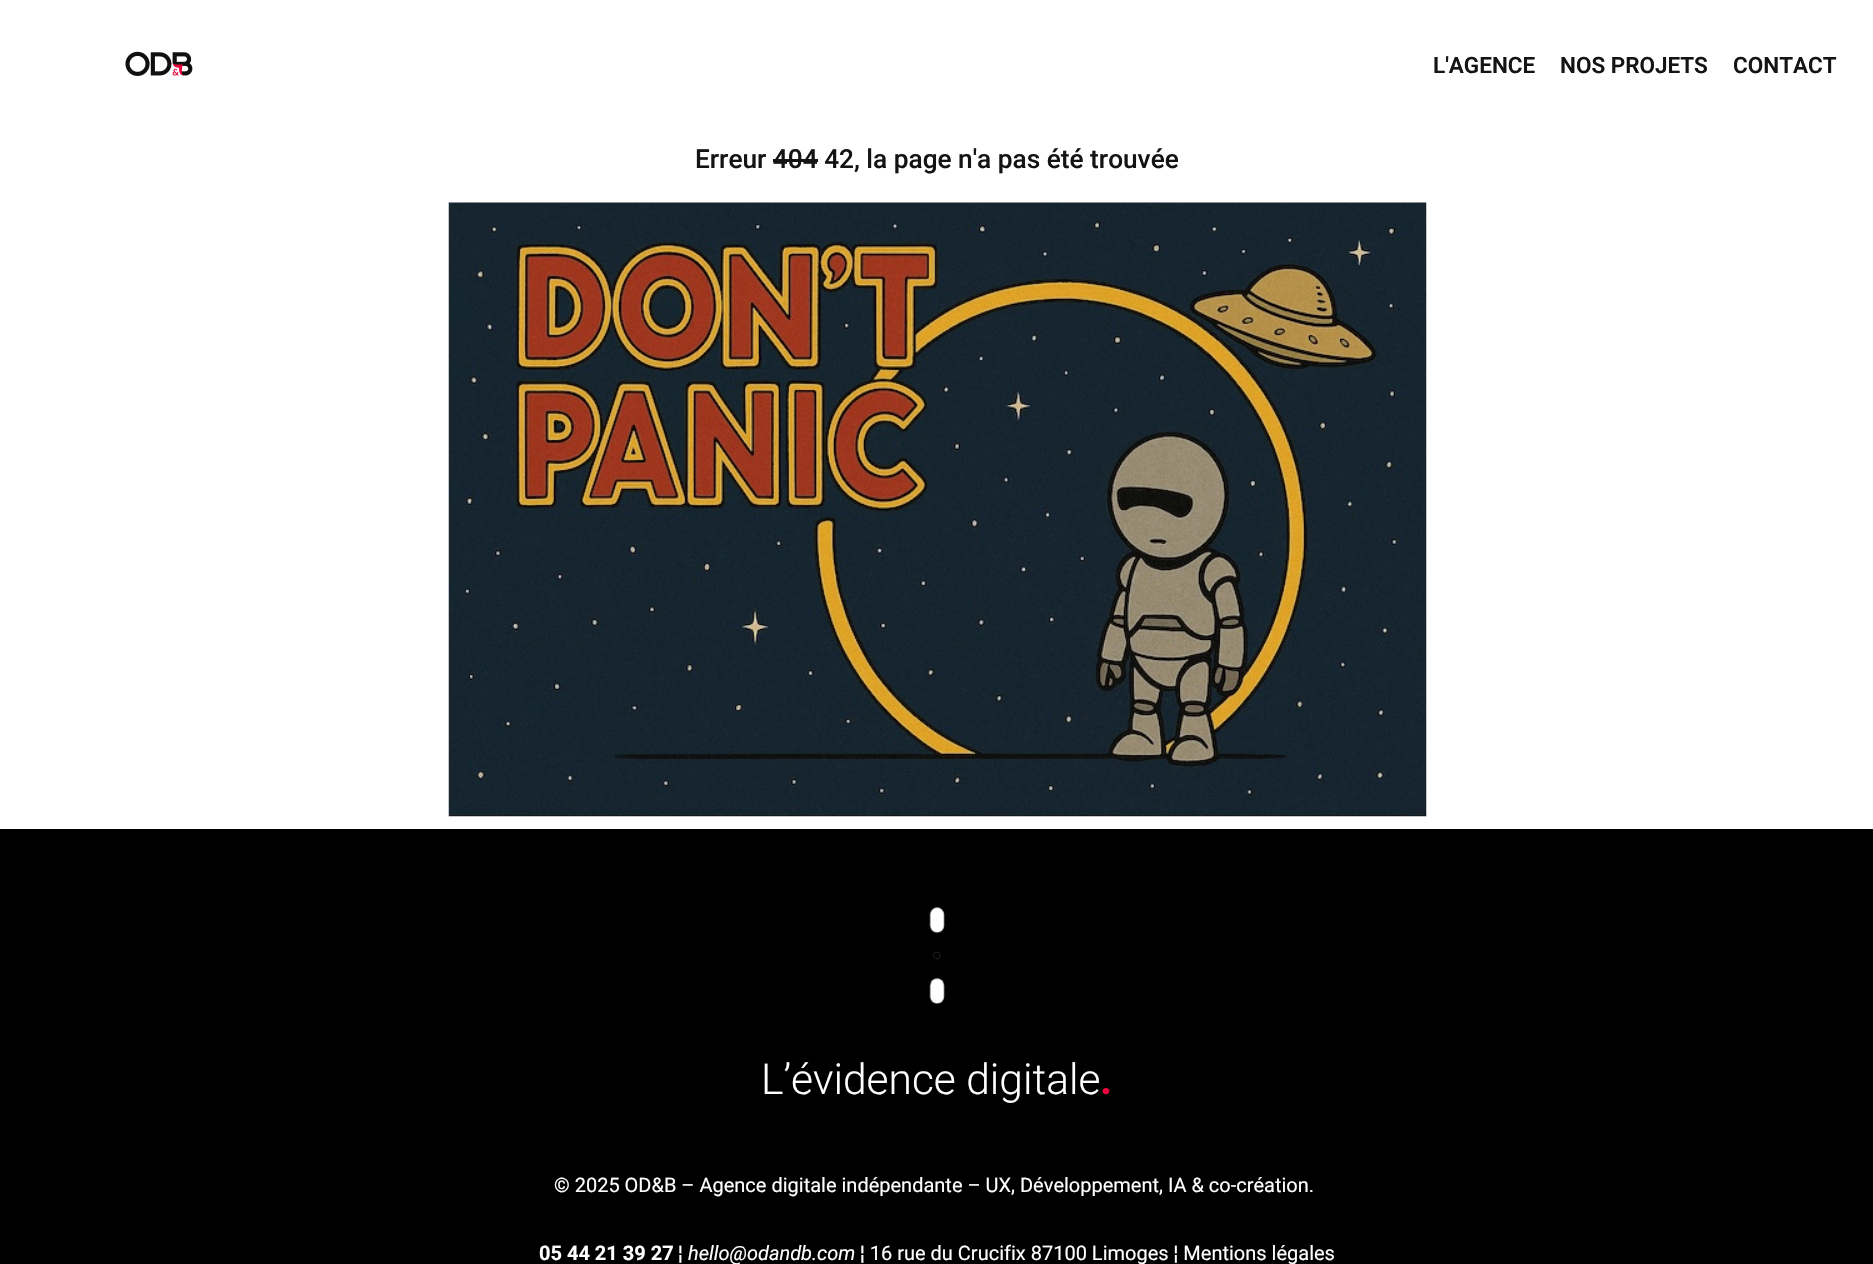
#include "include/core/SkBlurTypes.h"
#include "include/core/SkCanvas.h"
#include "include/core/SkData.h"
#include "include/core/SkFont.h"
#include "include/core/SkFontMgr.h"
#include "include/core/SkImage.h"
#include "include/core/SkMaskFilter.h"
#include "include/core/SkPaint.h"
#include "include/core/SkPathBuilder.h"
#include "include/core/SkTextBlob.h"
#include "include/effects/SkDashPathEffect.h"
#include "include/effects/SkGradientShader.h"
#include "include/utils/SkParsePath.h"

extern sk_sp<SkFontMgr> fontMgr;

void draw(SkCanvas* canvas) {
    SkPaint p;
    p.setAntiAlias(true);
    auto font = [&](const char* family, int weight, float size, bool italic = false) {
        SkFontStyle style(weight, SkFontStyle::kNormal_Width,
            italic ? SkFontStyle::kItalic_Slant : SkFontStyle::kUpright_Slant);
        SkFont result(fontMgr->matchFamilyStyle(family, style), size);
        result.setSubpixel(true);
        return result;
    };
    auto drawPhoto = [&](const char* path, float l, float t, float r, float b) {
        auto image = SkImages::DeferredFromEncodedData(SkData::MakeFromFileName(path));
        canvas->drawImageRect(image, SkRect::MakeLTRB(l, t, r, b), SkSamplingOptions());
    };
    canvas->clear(0xFFFFFFFF);
    drawPhoto("media/1.png", 125, 51, 193, 76);
    auto font1 = font("Roboto", 600, 22.5f);
    p.setColor(0xFF141414);
    {
        const struct { const char* s; float x, y; } items[] = {
            {"L'AGENCE", 1433, 73},
            {"NOS PROJETS", 1560, 73},
            {"CONTACT", 1733, 73},
        };
        for (auto [s, x, y] : items) {
            canvas->drawString(s, x, y, font1, p);
        }
    }
    auto font2 = font("Roboto", 500, 26.25f);
    canvas->drawString("Erreur 404 42, la page n'a pas été trouvée", 695, 168, font2, p);
    canvas->drawRect(SkRect::MakeLTRB(773, 159, 818, 162), p);
    drawPhoto("media/2.png", 448, 202, 1427, 817);
    p.setColor(0xFF000000);
    canvas->drawRect(SkRect::MakeLTRB(0, 829, 1873, 1264), p);
    drawPhoto("media/3.png", 929, 907, 945, 1005);
    auto font3 = font("Roboto", 300, 42.5f);
    p.setColor(0xFFFFFFFF);
    canvas->drawString("L’évidence digitale", 761, 1094, font3, p);
    auto font4 = font("Roboto", 700, 42.5f);
    p.setColor(0xFFEC043C);
    canvas->drawString(".", 1100, 1094, font4, p);
    auto font5 = font("Roboto", 400, 20);
    p.setColor(0xFFFFFFFF);
    canvas->drawString("© 2025 OD&B – Agence digitale indépendante – UX, Développement, IA & co-création.", 554, 1192, font5, p);
    auto font6 = font("Roboto", 700, 20);
    canvas->drawString("05 44 21 39 27", 539, 1260, font6, p);
    canvas->drawString("¦", 678, 1260, font5, p);
    auto font7 = font("Roboto", 400, 20, true);
    canvas->drawString("hello@odandb.com", 688, 1260, font7, p);
    canvas->drawString("¦ 16 rue du Crucifix 87100 Limoges ¦ Mentions légales", 860, 1260, font5, p);
}
